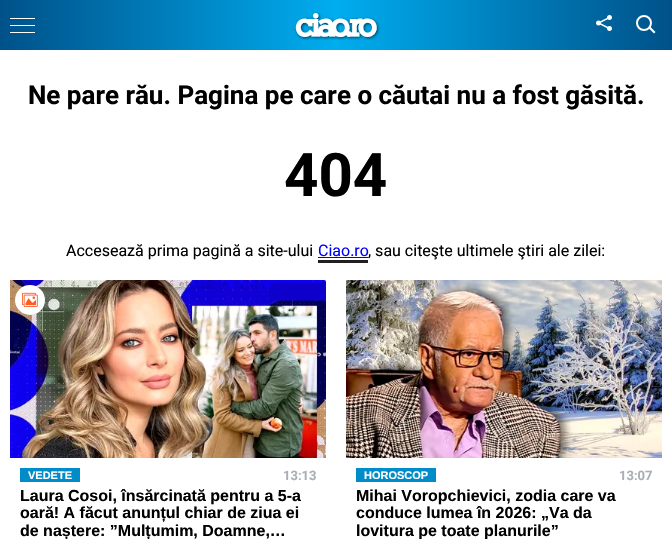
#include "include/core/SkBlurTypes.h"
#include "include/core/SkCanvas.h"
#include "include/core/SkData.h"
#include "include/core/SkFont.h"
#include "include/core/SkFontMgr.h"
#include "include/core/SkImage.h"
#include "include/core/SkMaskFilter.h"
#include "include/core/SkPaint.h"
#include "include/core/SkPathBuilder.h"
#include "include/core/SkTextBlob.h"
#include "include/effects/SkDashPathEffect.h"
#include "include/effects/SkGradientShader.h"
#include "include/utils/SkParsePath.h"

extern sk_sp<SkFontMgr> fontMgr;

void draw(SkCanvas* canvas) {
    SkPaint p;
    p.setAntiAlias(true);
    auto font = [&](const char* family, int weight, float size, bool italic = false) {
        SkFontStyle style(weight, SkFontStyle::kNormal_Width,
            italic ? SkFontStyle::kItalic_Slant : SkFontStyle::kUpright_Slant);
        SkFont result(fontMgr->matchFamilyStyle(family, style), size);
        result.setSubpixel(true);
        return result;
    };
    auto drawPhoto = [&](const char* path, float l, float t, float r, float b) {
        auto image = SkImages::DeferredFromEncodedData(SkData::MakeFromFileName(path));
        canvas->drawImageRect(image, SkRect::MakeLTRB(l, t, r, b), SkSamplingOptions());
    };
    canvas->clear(0xFFFFFFFF);
    {
        const SkColor colors[] = {0xFF005189, 0xFF00ADEF, 0xFF005189};
        const float stops[] = {0, 0.5f, 1};
        const SkPoint ends[] = {{0, 25}, {672, 25}};
        p.setShader(SkGradientShader::MakeLinear(ends, colors, stops, 3, SkTileMode::kClamp));
        p.setAlpha(255);
    }
    canvas->drawRect(SkRect::MakeLTRB(0, 0, 672, 50), p);
    p.setShader(nullptr);
    {
        const struct { float l, t, r, b; SkColor color; } items[] = {
            {10, 25, 35, 26, 0xFFFFFFFF},
            {10, 18, 35, 19, 0xFFFFFFFF},
            {10, 32, 35, 33, 0xFFFFFFFF},
        };
        for (auto [l, t, r, b, color] : items) {
            p.setColor(color);
            canvas->drawRect(SkRect::MakeLTRB(l, t, r, b), p);
        }
    }
    drawPhoto("media/1.png", 294, 12, 380, 40);
    drawPhoto("media/2.png", 596, 15, 612, 31);
    p.setStyle(SkPaint::kStroke_Style);
    p.setStrokeWidth(2);
    canvas->drawCircle(644, 23, 7, p);
    p.setStyle(SkPaint::kFill_Style);
    canvas->drawPath(SkPathBuilder().moveTo(648.5f, 28).lineTo(650, 26.5f).lineTo(655.5f, 32).lineTo(654, 33.5f).close().detach(), p);
    auto font1 = font("Roboto", 700, 26);
    p.setColor(0xFF000000);
    canvas->drawString("Ne pare rău. Pagina pe care o căutai nu a fost găsită.", 28, 104, font1, p);
    auto font2 = font("Roboto", 700, 60);
    canvas->drawString("404", 284, 196, font2, p);
    auto font3 = font("Roboto", 400, 16);
    canvas->drawString("Accesează prima pagină a site-ului", 66, 256, font3, p);
    p.setColor(0xFF0000FF);
    canvas->drawString("Ciao.ro", 318, 256, font3, p);
    p.setColor(0xFF231F20);
    canvas->drawRect(SkRect::MakeLTRB(318, 260, 368, 263), p);
    p.setColor(0xFF0000FF);
    canvas->drawRect(SkRect::MakeLTRB(318, 257, 368, 258), p);
    p.setColor(0xFF000000);
    canvas->drawString(", sau citeşte ultimele ştiri ale zilei:", 368, 256, font3, p);
    drawPhoto("media/3.png", 10, 280, 326, 458);
    p.setColor(0xFFFFFFFF);
    canvas->drawCircle(30, 300, 15, p);
    drawPhoto("media/4.png", 22, 292, 38, 307);
    p.setColor(0xFF008BC9);
    canvas->drawRect(SkRect::MakeLTRB(20, 468, 80, 482), p);
    auto font4 = font("Liberation Sans", 700, 11);
    p.setColor(0xFFFFFFFF);
    canvas->drawString("VEDETE", 28, 479, font4, p);
    auto font5 = font("Roboto", 700, 13);
    p.setColor(0xFFA8AFB7);
    canvas->drawString("13:13", 283, 480, font5, p);
    auto font6 = font("Liberation Sans", 700, 16);
    p.setColor(0xFF000000);
    canvas->drawString("Laura Cosoi, însărcinată pentru a 5-a", 20, 501, font6, p);
    canvas->drawString("oară! A făcut anunțul chiar de ziua ei", 20, 518, font6, p);
    canvas->save();
    canvas->clipRect(SkRect::MakeLTRB(20, 487, 316, 539));
    canvas->drawString("de naștere: ”Mulțumim, Doamne,…", 20, 536, font6, p);
    canvas->restore();
    drawPhoto("media/5.png", 346, 280, 662, 458);
    p.setColor(0xFF008BC9);
    canvas->drawRect(SkRect::MakeLTRB(356, 468, 436, 482), p);
    p.setColor(0xFFFFFFFF);
    canvas->drawString("HOROSCOP", 364, 479, font4, p);
    p.setColor(0xFFA8AFB7);
    canvas->drawString("13:07", 619, 480, font5, p);
    p.setColor(0xFF000000);
    canvas->drawString("Mihai Voropchievici, zodia care va", 356, 501, font6, p);
    canvas->drawString("conduce lumea în 2026: „Va da", 356, 518, font6, p);
    canvas->save();
    canvas->clipRect(SkRect::MakeLTRB(356, 487, 652, 539));
    canvas->drawString("lovitura pe toate planurile”", 356, 536, font6, p);
    canvas->restore();
}
